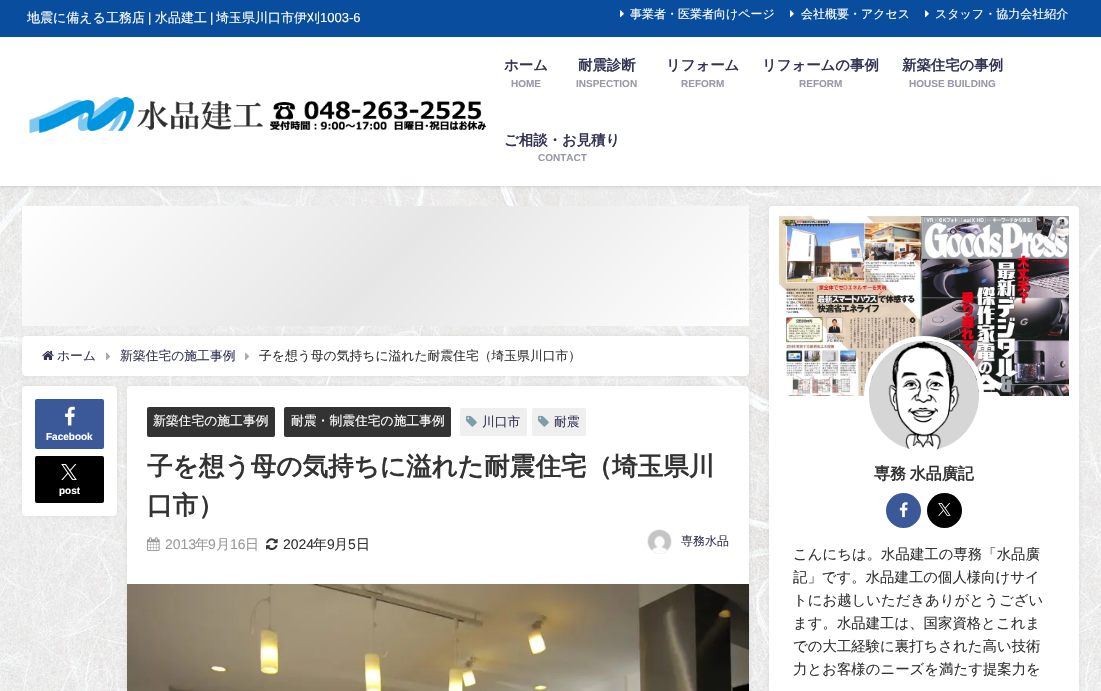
#include "include/core/SkBlurTypes.h"
#include "include/core/SkCanvas.h"
#include "include/core/SkData.h"
#include "include/core/SkFont.h"
#include "include/core/SkFontMgr.h"
#include "include/core/SkImage.h"
#include "include/core/SkMaskFilter.h"
#include "include/core/SkPaint.h"
#include "include/core/SkPathBuilder.h"
#include "include/core/SkTextBlob.h"
#include "include/effects/SkDashPathEffect.h"
#include "include/effects/SkGradientShader.h"
#include "include/utils/SkParsePath.h"

extern sk_sp<SkFontMgr> fontMgr;

void draw(SkCanvas* canvas) {
    SkPaint p;
    p.setAntiAlias(true);
    auto font = [&](const char* family, int weight, float size, bool italic = false) {
        SkFontStyle style(weight, SkFontStyle::kNormal_Width,
            italic ? SkFontStyle::kItalic_Slant : SkFontStyle::kUpright_Slant);
        SkFont result(fontMgr->matchFamilyStyle(family, style), size);
        result.setSubpixel(true);
        return result;
    };
    auto drawTracked = [&](const char* s, float x, float y, const SkFont& font, const SkPaint& ink, float letter, float word) {
        std::vector<SkGlyphID> glyphs(font.countText(s, strlen(s), SkTextEncoding::kUTF8));
        std::vector<float> xs(glyphs.size());
        font.textToGlyphs(s, strlen(s), SkTextEncoding::kUTF8, glyphs);
        font.getXPos(glyphs, xs, x);
        float extra = 0;
        for (size_t i = 0; i < glyphs.size(); i++) {
            xs[i] += extra;
            extra += letter + word * (glyphs[i] == font.unicharToGlyph(' '));
        }
        canvas->drawTextBlob(SkTextBlob::MakeFromPosHGlyphs(glyphs, xs, y, font), 0, 0, ink);
    };
    auto drawPhoto = [&](const char* path, float l, float t, float r, float b) {
        auto image = SkImages::DeferredFromEncodedData(SkData::MakeFromFileName(path));
        canvas->drawImageRect(image, SkRect::MakeLTRB(l, t, r, b), SkSamplingOptions());
    };
    canvas->clear(0xFFFFFFFF);
    drawPhoto("media/1.png", 0, 186, 1101, 691);
    p.setColor(0x33000000);
    p.setMaskFilter(SkMaskFilter::MakeBlur(kNormal_SkBlurStyle, 2));
    canvas->drawRect(SkRect::MakeLTRB(0, 0, 1101, 186), p);
    p.setMaskFilter(nullptr);
    p.setColor(0xFFFFFFFF);
    canvas->drawRect(SkRect::MakeLTRB(0, 37, 1101, 186), p);
    p.setColor(0xFF094E9E);
    canvas->drawRect(SkRect::MakeLTRB(0, 0, 1101, 37), p);
    auto font1 = font("WenQuanYi Zen Hei", 500, 13);
    p.setColor(0xFFFFFFFF);
    canvas->drawString("地震に備える工務店", 27, 22, font1, p);
    auto font2 = font("Liberation Sans", 400, 13);
    canvas->drawString("|", 148, 22, font2, p);
    canvas->drawString("水品建工", 155, 22, font1, p);
    canvas->drawString("|", 210, 22, font2, p);
    canvas->drawString("埼玉県川口市伊刈", 216, 22, font1, p);
    canvas->drawString("1003-6", 320, 22, font2, p);
    drawPhoto("media/2.png", 620, 10, 624, 18);
    auto font3 = font("WenQuanYi Zen Hei", 500, 12);
    canvas->drawString("事業者・医業者向けページ", 630, 18, font3, p);
    drawPhoto("media/2.png", 790, 10, 794, 18);
    canvas->drawString("会社概要・アクセス", 801, 18, font3, p);
    drawPhoto("media/2.png", 925, 10, 929, 18);
    canvas->drawString("スタッフ・協力会社紹介", 935, 18, font3, p);
    drawPhoto("media/3.png", 29, 97, 487, 133);
    auto font4 = font("WenQuanYi Zen Hei", 700, 14.4f);
    p.setColor(0xFF333355);
    canvas->drawString("ホーム", 504, 70, font4, p);
    auto font5 = font("Liberation Sans", 700, 10);
    p.setColor(0xFF9999AA);
    canvas->drawString("HOME", 511, 87, font5, p);
    p.setColor(0xFF333355);
    canvas->drawString("耐震診断", 578, 70, font4, p);
    p.setColor(0xFF9999AA);
    canvas->drawString("INSPECTION", 576, 87, font5, p);
    p.setColor(0xFF333355);
    canvas->drawString("リフォーム", 666, 70, font4, p);
    p.setColor(0xFF9999AA);
    canvas->drawString("REFORM", 681, 87, font5, p);
    p.setColor(0xFF333355);
    canvas->drawString("リフォームの事例", 762, 70, font4, p);
    p.setColor(0xFF9999AA);
    canvas->drawString("REFORM", 799, 87, font5, p);
    p.setColor(0xFF333355);
    canvas->drawString("新築住宅の事例", 902, 70, font4, p);
    p.setColor(0xFF9999AA);
    canvas->drawString("HOUSE BUILDING", 909, 87, font5, p);
    p.setColor(0xFF333355);
    canvas->drawString("ご相談・お見積り", 504, 145, font4, p);
    p.setColor(0xFF9999AA);
    canvas->drawString("CONTACT", 538, 161, font5, p);
    {
        const SkColor colors[] = {0xFFFFFFFF, 0xFFE6E6E6, 0xFFFFFFFF};
        const float stops[] = {0, 0.5f, 1};
        const SkPoint ends[] = {{174, 54}, {597, 478}};
        p.setShader(SkGradientShader::MakeLinear(ends, colors, stops, 3, SkTileMode::kClamp));
        p.setAlpha(255);
    }
    canvas->drawRect(SkRect::MakeLTRB(22, 206, 749, 326), p);
    p.setShader(nullptr);
    p.setColor(0x33969696);
    p.setMaskFilter(SkMaskFilter::MakeBlur(kNormal_SkBlurStyle, 2.5f));
    canvas->drawRoundRect(SkRect::MakeLTRB(22, 336, 749, 376), 4, 4, p);
    p.setMaskFilter(nullptr);
    p.setColor(0xFFFFFFFF);
    canvas->drawRoundRect(SkRect::MakeLTRB(22, 336, 749, 376), 4, 4, p);
    drawPhoto("media/4.png", 42, 350, 54, 360);
    auto font6 = font("WenQuanYi Zen Hei", 500, 12.8f);
    p.setColor(0xFF333355);
    canvas->drawString("ホーム", 57, 360, font6, p);
    drawPhoto("media/5.png", 106, 352, 110, 360);
    canvas->drawString("新築住宅の施工事例", 120, 360, font6, p);
    drawPhoto("media/5.png", 245, 352, 249, 360);
    p.setColor(0xFF333333);
    canvas->drawString("子を想う母の気持ちに溢れた耐震住宅（埼玉県川口市）", 259, 360, font6, p);
    p.setColor(0x33969696);
    p.setMaskFilter(SkMaskFilter::MakeBlur(kNormal_SkBlurStyle, 2.5f));
    canvas->drawRoundRect(SkRect::MakeLTRB(22, 386, 117, 516), 4, 4, p);
    p.setMaskFilter(nullptr);
    p.setColor(0xFFFFFFFF);
    canvas->drawRoundRect(SkRect::MakeLTRB(22, 386, 117, 516), 4, 4, p);
    p.setColor(0xFF3B5998);
    canvas->drawRoundRect(SkRect::MakeLTRB(35, 399, 104, 449), 2, 2, p);
    drawPhoto("media/6.png", 65, 406, 75, 426);
    p.setColor(0xFFFFFFFF);
    canvas->drawString("Facebook", 46, 440, font5, p);
    p.setColor(0xFF000000);
    canvas->drawRoundRect(SkRect::MakeLTRB(35, 456, 104, 503), 2, 2, p);
    drawPhoto("media/7.png", 61, 464, 77, 480);
    p.setColor(0xFFFFFFFF);
    canvas->drawString("post", 59, 494, font5, p);
    p.setColor(0x33969696);
    p.setMaskFilter(SkMaskFilter::MakeBlur(kNormal_SkBlurStyle, 2.5f));
    canvas->drawRoundRect(SkRect::MakeLTRB(127, 386, 749, 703), 4, 4, p);
    p.setMaskFilter(nullptr);
    p.setColor(0xFFFFFFFF);
    canvas->drawRoundRect(SkRect::MakeLTRB(127, 386, 749, 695), 4, 4, p);
    p.setColor(0xFF333333);
    canvas->drawRoundRect(SkRect::MakeLTRB(147, 407, 275, 437), 2, 2, p);
    p.setColor(0xFFFFFFFF);
    canvas->drawString("新築住宅の施工事例", 153, 425, font6, p);
    p.setColor(0xFF333333);
    canvas->drawRoundRect(SkRect::MakeLTRB(284, 407, 451, 437), 2, 2, p);
    p.setColor(0xFFFFFFFF);
    canvas->drawString("耐震・制震住宅の施工事例", 291, 425, font6, p);
    p.setColor(0xFFEFEFEF);
    canvas->drawRoundRect(SkRect::MakeLTRB(460, 408, 527, 436), 2, 2, p);
    drawPhoto("media/8.png", 466, 415, 477, 427);
    p.setColor(0xFF333355);
    canvas->drawString("川口市", 482, 426, font6, p);
    p.setColor(0xFFEFEFEF);
    canvas->drawRoundRect(SkRect::MakeLTRB(532, 408, 586, 436), 2, 2, p);
    drawPhoto("media/8.png", 538, 415, 549, 427);
    p.setColor(0xFF333355);
    canvas->drawString("耐震", 554, 426, font6, p);
    auto font7 = font("WenQuanYi Zen Hei", 700, 25.6f);
    p.setColor(0xFF333333);
    canvas->drawString("子を想う母の気持ちに溢れた耐震住宅（埼玉県川", 147, 475, font7, p);
    canvas->drawString("口市）", 147, 514, font7, p);
    drawPhoto("media/9.png", 147, 537, 160, 551);
    auto font8 = font("Liberation Sans", 400, 14);
    p.setColor(0xFF999999);
    canvas->drawString("2013", 165, 549, font8, p);
    auto font9 = font("WenQuanYi Zen Hei", 500, 14);
    canvas->drawString("年", 195, 549, font9, p);
    canvas->drawString("9", 208, 549, font8, p);
    canvas->drawString("月", 216, 549, font9, p);
    canvas->drawString("16", 230, 549, font8, p);
    canvas->drawString("日", 245, 549, font9, p);
    drawPhoto("media/10.png", 266, 538, 278, 550);
    p.setColor(0xFF333333);
    canvas->drawString("2024", 283, 549, font8, p);
    canvas->drawString("年", 313, 549, font9, p);
    canvas->drawString("9", 327, 549, font8, p);
    canvas->drawString("月", 334, 549, font9, p);
    canvas->drawString("5", 348, 549, font8, p);
    canvas->drawString("日", 356, 549, font9, p);
    p.setStyle(SkPaint::kStroke_Style);
    p.setStrokeWidth(1);
    p.setColor(0xFFEEEEEE);
    canvas->drawCircle(659.5f, 541.5f, 12, p);
    drawPhoto("media/11.png", 648, 530, 671, 553);
    p.setStyle(SkPaint::kFill_Style);
    p.setColor(0xFF333355);
    canvas->drawString("専務水品", 681, 545, font3, p);
    drawPhoto("media/12.png", 127, 584, 749, 691);
    p.setColor(0x33969696);
    p.setMaskFilter(SkMaskFilter::MakeBlur(kNormal_SkBlurStyle, 2.5f));
    canvas->drawRoundRect(SkRect::MakeLTRB(769, 206, 1079, 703), 4, 4, p);
    p.setMaskFilter(nullptr);
    p.setColor(0xFFFFFFFF);
    canvas->drawRoundRect(SkRect::MakeLTRB(769, 206, 1079, 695), 4, 4, p);
    drawPhoto("media/13.png", 779, 216, 1069, 396);
    p.setStyle(SkPaint::kStroke_Style);
    p.setStrokeWidth(5);
    canvas->drawCircle(924, 396, 57.5f, p);
    drawPhoto("media/14.png", 869, 341, 979, 450);
    auto font10 = font("WenQuanYi Zen Hei", 700, 16);
    p.setStyle(SkPaint::kFill_Style);
    p.setColor(0xFF333333);
    drawTracked("専務 水品廣記", 874, 479, font10, p, 0, -1);
    p.setColor(0xFF3B5998);
    canvas->drawCircle(903.5f, 510.5f, 17.5f, p);
    drawPhoto("media/15.png", 899, 502, 908, 518);
    p.setColor(0xFF000000);
    canvas->drawCircle(944.5f, 510.5f, 17.5f, p);
    drawPhoto("media/16.png", 938, 503, 951, 516);
    auto font11 = font("WenQuanYi Zen Hei", 500, 14.4f);
    p.setColor(0xFF333333);
    {
        const struct { const char* s; float x, y; } items[] = {
            {"こんにちは。水品建工の専務「水品廣", 793, 559},
            {"記」です。水品建工の個人様向けサイ", 793, 582},
            {"トにお越しいただきありがとうござい", 793, 605},
            {"ます。水品建工は、国家資格とこれま", 793, 628},
            {"での大工経験に裏打ちされた高い技術", 793, 651},
            {"力とお客様のニーズを満たす提案力を", 793, 674},
        };
        for (auto [s, x, y] : items) {
            canvas->drawString(s, x, y, font11, p);
        }
    }
}
